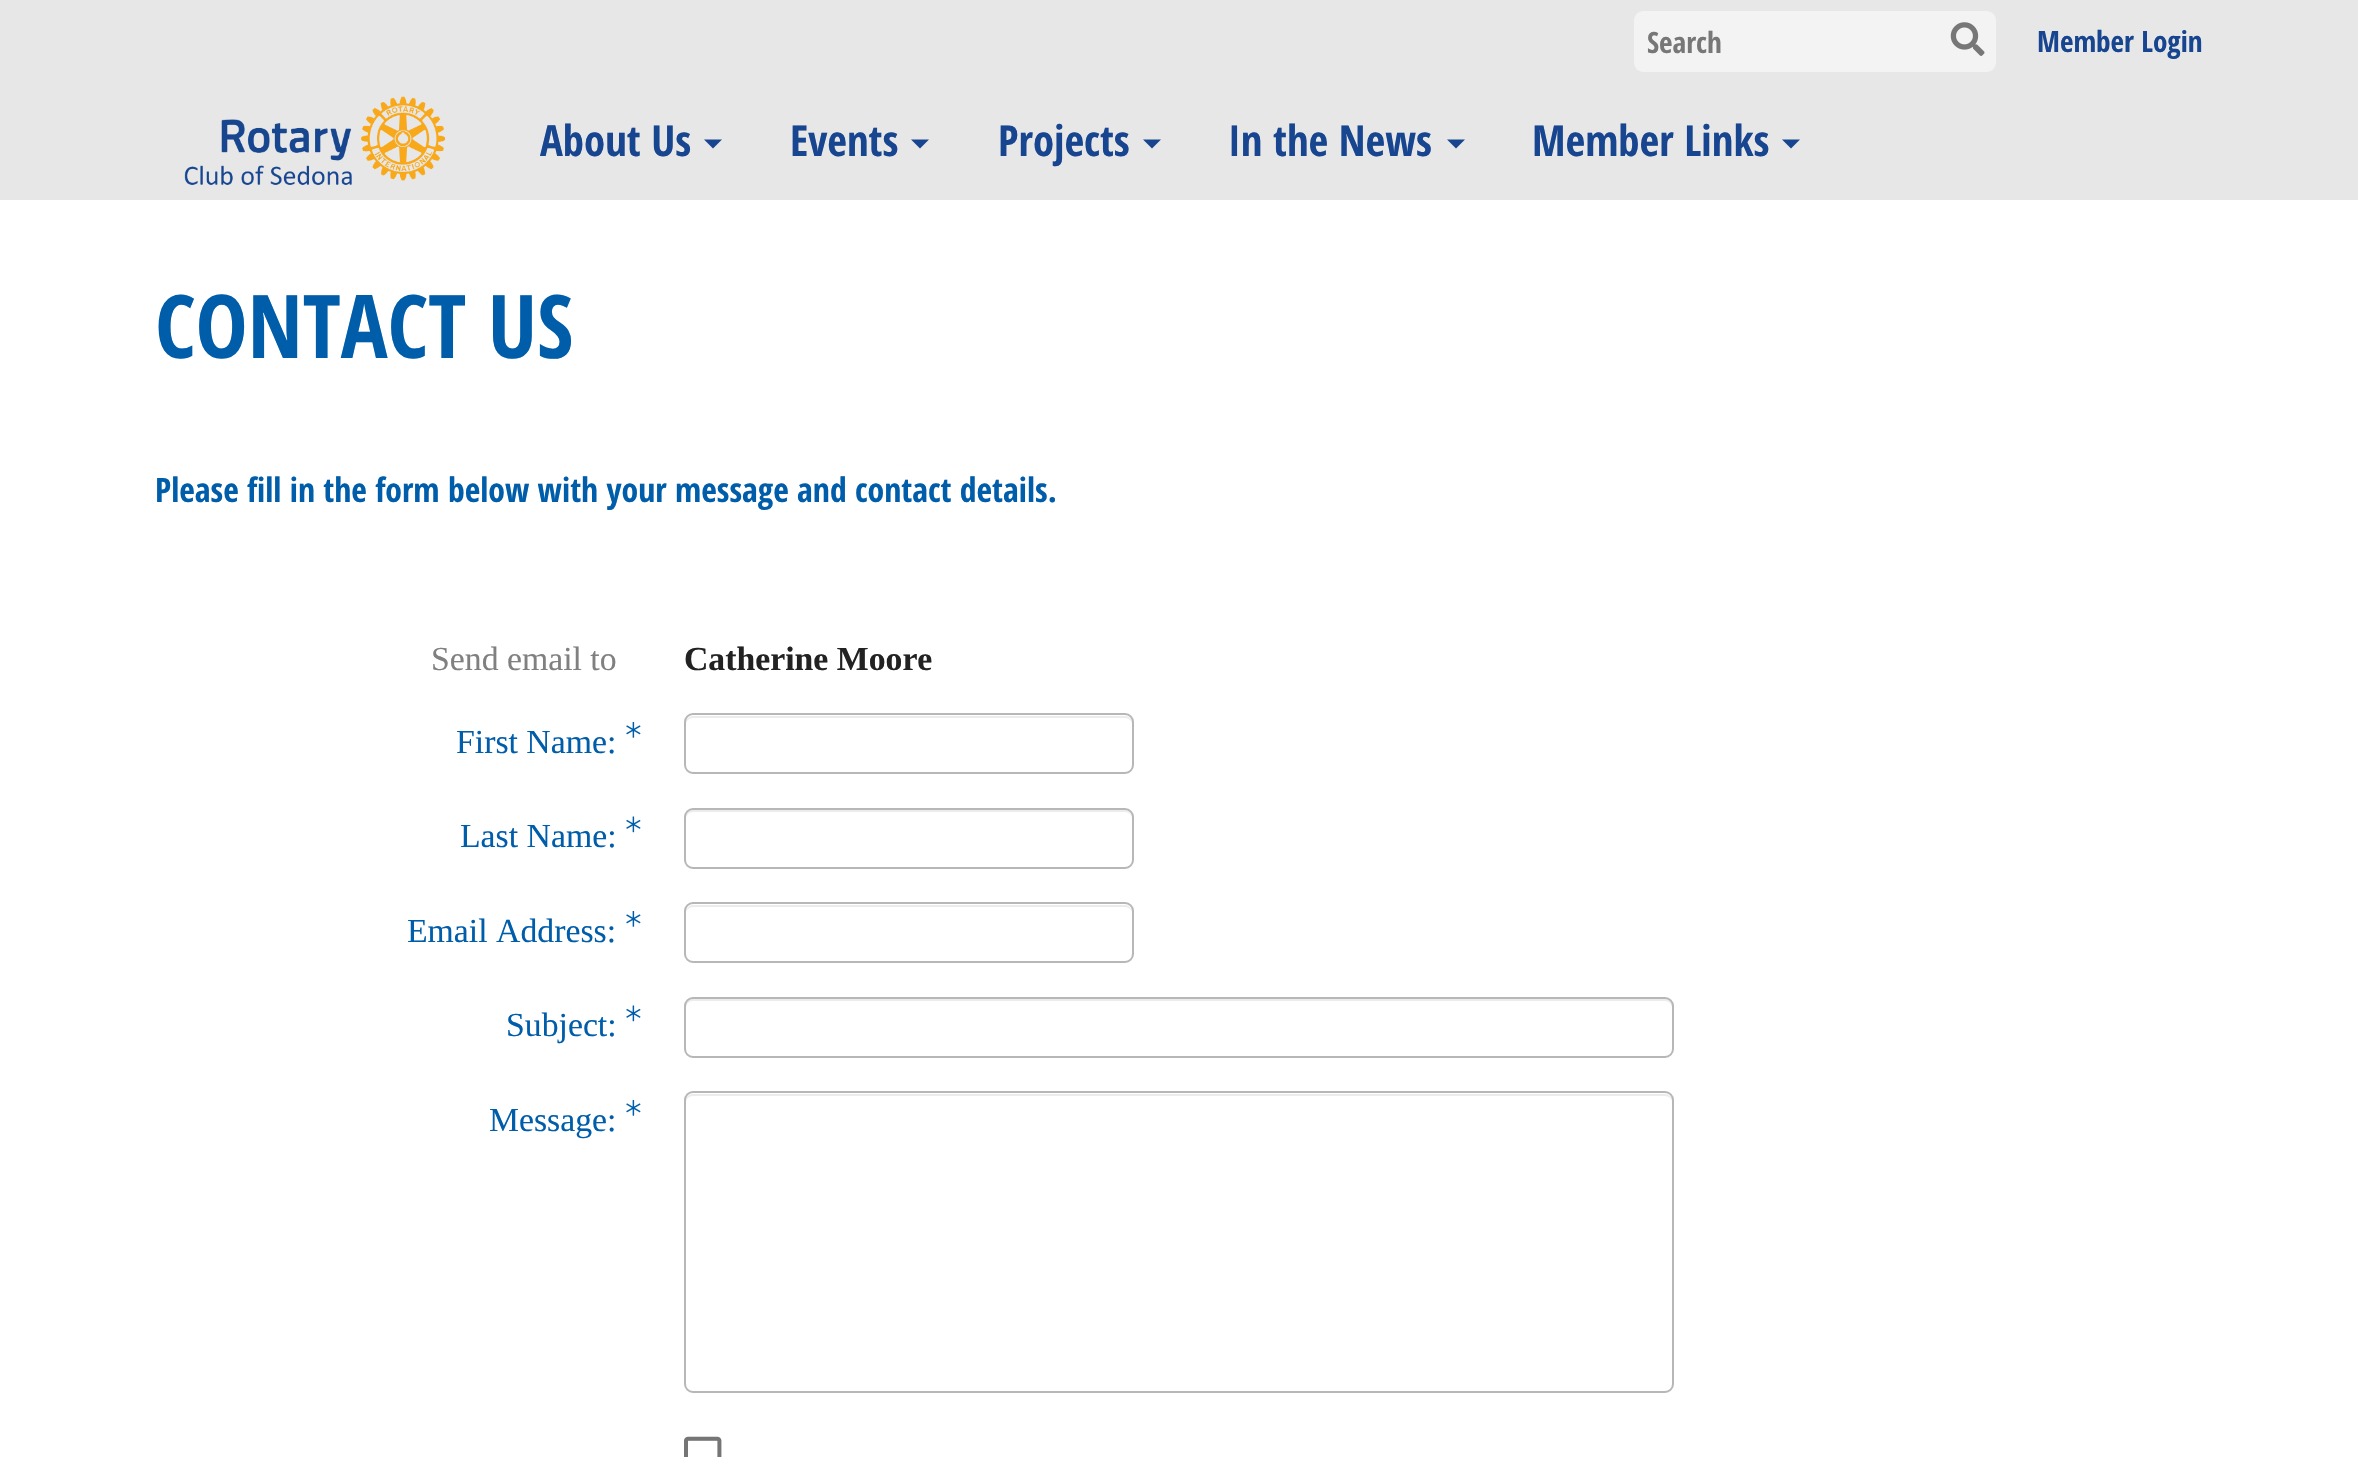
#include "include/core/SkBlurTypes.h"
#include "include/core/SkCanvas.h"
#include "include/core/SkData.h"
#include "include/core/SkFont.h"
#include "include/core/SkFontMgr.h"
#include "include/core/SkImage.h"
#include "include/core/SkMaskFilter.h"
#include "include/core/SkPaint.h"
#include "include/core/SkPathBuilder.h"
#include "include/core/SkTextBlob.h"
#include "include/effects/SkDashPathEffect.h"
#include "include/effects/SkGradientShader.h"
#include "include/utils/SkParsePath.h"

extern sk_sp<SkFontMgr> fontMgr;

void draw(SkCanvas* canvas) {
    SkPaint p;
    p.setAntiAlias(true);
    auto font = [&](const char* family, int weight, float size, bool italic = false) {
        SkFontStyle style(weight, SkFontStyle::kNormal_Width,
            italic ? SkFontStyle::kItalic_Slant : SkFontStyle::kUpright_Slant);
        SkFont result(fontMgr->matchFamilyStyle(family, style), size);
        result.setSubpixel(true);
        return result;
    };
    auto drawPhoto = [&](const char* path, float l, float t, float r, float b) {
        auto image = SkImages::DeferredFromEncodedData(SkData::MakeFromFileName(path));
        canvas->drawImageRect(image, SkRect::MakeLTRB(l, t, r, b), SkSamplingOptions());
    };
    canvas->clear(0xFFFFFFFF);
    p.setColor(0xFFE7E7E8);
    canvas->drawRect(SkRect::MakeLTRB(0, 0, 2358, 200), p);
    p.setColor(0xFFF3F3F4);
    canvas->drawRoundRect(SkRect::MakeLTRB(1634, 11, 1996, 72), 9, 9, p);
    auto font1 = font("Open Sans Condensed", 700, 29.25f);
    p.setColor(0xFF777777);
    canvas->drawString("Search", 1647, 53, font1, p);
    drawPhoto("media/1.png", 1950, 22, 1985, 56);
    p.setColor(0xFF17458F);
    canvas->drawString("Member Login", 2037, 52, font1, p);
    drawPhoto("media/2.png", 184, 96, 446, 185);
    auto font2 = font("Open Sans Condensed", 700, 42.75f);
    canvas->drawString("About Us", 540, 156, font2, p);
    canvas->drawPath(SkPathBuilder().moveTo(704, 139.5f).lineTo(722, 139.5f).lineTo(713, 148.5f).close().detach(), p);
    canvas->drawString("Events", 790, 156, font2, p);
    canvas->drawPath(SkPathBuilder().moveTo(911, 139.5f).lineTo(929, 139.5f).lineTo(920, 148.5f).close().detach(), p);
    canvas->drawString("Projects", 998, 156, font2, p);
    canvas->drawPath(SkPathBuilder().moveTo(1143, 139.5f).lineTo(1161, 139.5f).lineTo(1152, 148.5f).close().detach(), p);
    canvas->drawString("In the News", 1228, 156, font2, p);
    canvas->drawPath(SkPathBuilder().moveTo(1447, 139.5f).lineTo(1465, 139.5f).lineTo(1456, 148.5f).close().detach(), p);
    canvas->drawString("Member Links", 1532, 156, font2, p);
    canvas->drawPath(SkPathBuilder().moveTo(1782, 139.5f).lineTo(1800, 139.5f).lineTo(1791, 148.5f).close().detach(), p);
    auto font3 = font("Open Sans Condensed", 700, 87.75f);
    p.setColor(0xFF005DAA);
    canvas->drawString("CONTACT US", 155, 358, font3, p);
    auto font4 = font("Open Sans Condensed", 700, 33.75f);
    canvas->drawString("Please fill in the form below with your message and contact details.", 155, 502, font4, p);
    auto font5 = font("Liberation Serif", 400, 33.75f);
    p.setColor(0xFF808080);
    canvas->drawString("Send email to", 431, 670, font5, p);
    auto font6 = font("Liberation Serif", 700, 33.75f);
    p.setColor(0xFF222222);
    canvas->drawString("Catherine Moore", 684, 670, font6, p);
    p.setColor(0xFF005DAA);
    canvas->drawString("First Name:", 456, 753, font5, p);
    drawPhoto("media/3.png", 626, 722, 641, 738);
    p.setColor(0xFFECECEC);
    canvas->drawPath(SkPathBuilder().moveTo(693, 718).lineTo(1125, 718).cubicTo(1129, 718, 1132, 721, 1132, 724).lineTo(1132, 723).cubicTo(1132, 719, 1129, 716, 1125, 716).lineTo(693, 716).cubicTo(689, 716, 686, 719, 686, 723).lineTo(686, 724).cubicTo(686, 721, 689, 718, 693, 718).close().detach(), p);
    p.setStyle(SkPaint::kStroke_Style);
    p.setStrokeWidth(2);
    p.setColor(0xFFB7B7B7);
    canvas->drawRoundRect(SkRect::MakeLTRB(685, 714, 1133, 773), 8, 8, p);
    p.setStyle(SkPaint::kFill_Style);
    p.setColor(0xFF005DAA);
    canvas->drawString("Last Name:", 460, 847, font5, p);
    drawPhoto("media/4.png", 626, 816, 641, 833);
    p.setColor(0xFFECECEC);
    canvas->drawPath(SkPathBuilder().moveTo(693, 812).lineTo(1125, 812).cubicTo(1129, 812, 1132, 815, 1132, 819).cubicTo(1132, 815, 1130, 810, 1125, 810).lineTo(693, 810).cubicTo(688, 810, 686, 815, 686, 819).cubicTo(686, 815, 689, 812, 693, 812).close().detach(), p);
    p.setStyle(SkPaint::kStroke_Style);
    p.setColor(0xFFB7B7B7);
    canvas->drawRoundRect(SkRect::MakeLTRB(685, 809, 1133, 868), 8, 8, p);
    p.setStyle(SkPaint::kFill_Style);
    p.setColor(0xFF005DAA);
    canvas->drawString("Email Address:", 407, 942, font5, p);
    drawPhoto("media/3.png", 626, 911, 641, 927);
    p.setColor(0xFFECECEC);
    canvas->drawPath(SkPathBuilder().moveTo(693, 907).lineTo(1125, 907).cubicTo(1129, 907, 1132, 910, 1132, 914).cubicTo(1132, 910, 1130, 905, 1125, 905).lineTo(693, 905).cubicTo(688, 905, 686, 910, 686, 914).cubicTo(686, 910, 689, 907, 693, 907).close().detach(), p);
    p.setStyle(SkPaint::kStroke_Style);
    p.setColor(0xFFB7B7B7);
    canvas->drawRoundRect(SkRect::MakeLTRB(685, 903, 1133, 962), 8, 8, p);
    p.setStyle(SkPaint::kFill_Style);
    p.setColor(0xFF005DAA);
    canvas->drawString("Subject:", 506, 1036, font5, p);
    drawPhoto("media/4.png", 626, 1005, 641, 1022);
    p.setColor(0xFFECECEC);
    canvas->drawPath(SkPathBuilder().moveTo(693, 1001).lineTo(1665, 1001).cubicTo(1669, 1001, 1672, 1004, 1672, 1008).lineTo(1672, 1006).cubicTo(1672, 1002, 1669, 999, 1665, 999).lineTo(693, 999).cubicTo(689, 999, 686, 1002, 686, 1006).lineTo(686, 1008).cubicTo(686, 1004, 689, 1001, 693, 1001).close().detach(), p);
    p.setStyle(SkPaint::kStroke_Style);
    p.setColor(0xFFB7B7B7);
    canvas->drawRoundRect(SkRect::MakeLTRB(685, 998, 1673, 1057), 8, 8, p);
    p.setStyle(SkPaint::kFill_Style);
    p.setColor(0xFF005DAA);
    canvas->drawString("Message:", 489, 1131, font5, p);
    drawPhoto("media/3.png", 626, 1100, 641, 1116);
    p.setColor(0xFFECECEC);
    canvas->drawPath(SkPathBuilder().moveTo(693, 1096).lineTo(1665, 1096).cubicTo(1669, 1096, 1672, 1099, 1672, 1102).lineTo(1672, 1101).cubicTo(1672, 1097, 1669, 1094, 1665, 1094).lineTo(693, 1094).cubicTo(689, 1094, 686, 1097, 686, 1101).lineTo(686, 1102).cubicTo(686, 1099, 689, 1096, 693, 1096).close().detach(), p);
    p.setStyle(SkPaint::kStroke_Style);
    p.setColor(0xFFB7B7B7);
    canvas->drawRoundRect(SkRect::MakeLTRB(685, 1092, 1673, 1392), 8, 8, p);
    drawPhoto("media/5.png", 684, 1436, 722, 1457);
}
